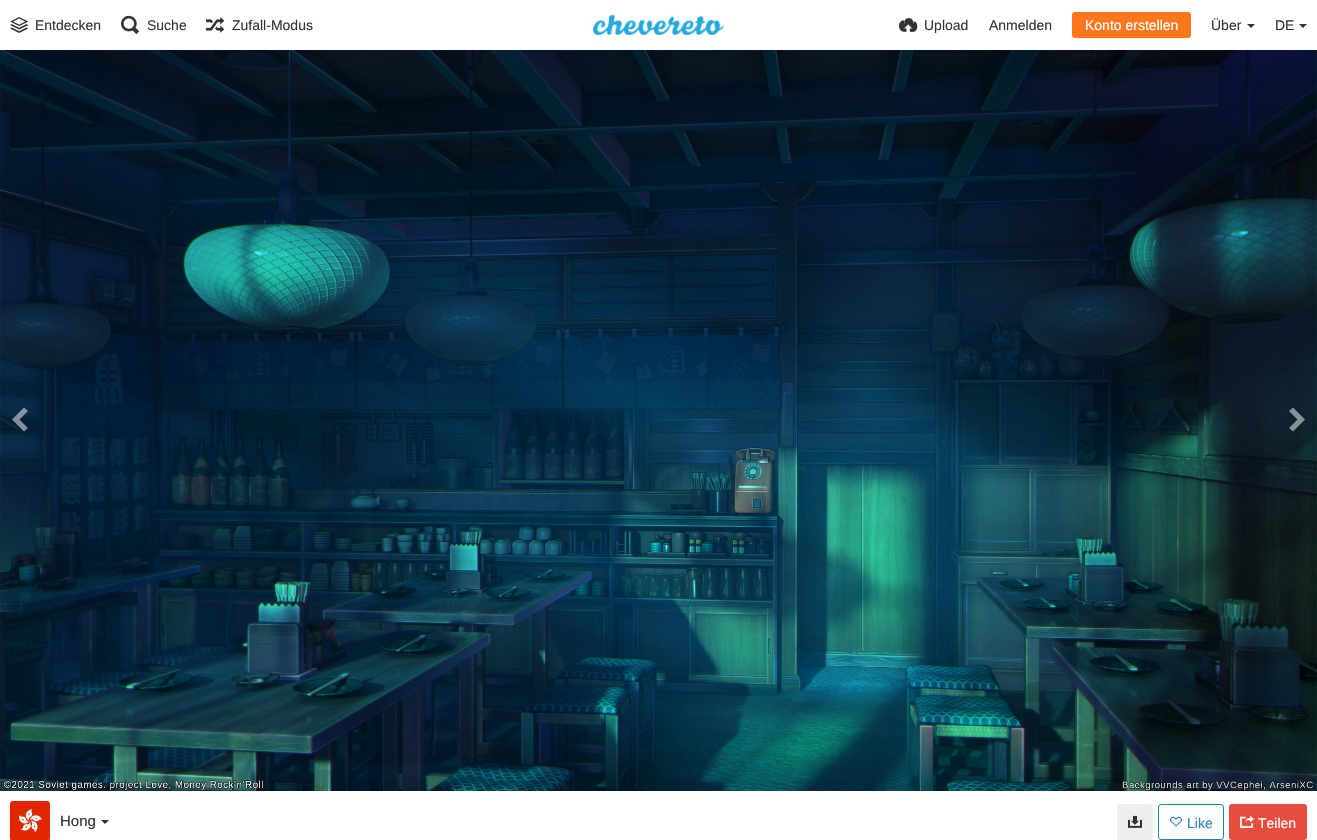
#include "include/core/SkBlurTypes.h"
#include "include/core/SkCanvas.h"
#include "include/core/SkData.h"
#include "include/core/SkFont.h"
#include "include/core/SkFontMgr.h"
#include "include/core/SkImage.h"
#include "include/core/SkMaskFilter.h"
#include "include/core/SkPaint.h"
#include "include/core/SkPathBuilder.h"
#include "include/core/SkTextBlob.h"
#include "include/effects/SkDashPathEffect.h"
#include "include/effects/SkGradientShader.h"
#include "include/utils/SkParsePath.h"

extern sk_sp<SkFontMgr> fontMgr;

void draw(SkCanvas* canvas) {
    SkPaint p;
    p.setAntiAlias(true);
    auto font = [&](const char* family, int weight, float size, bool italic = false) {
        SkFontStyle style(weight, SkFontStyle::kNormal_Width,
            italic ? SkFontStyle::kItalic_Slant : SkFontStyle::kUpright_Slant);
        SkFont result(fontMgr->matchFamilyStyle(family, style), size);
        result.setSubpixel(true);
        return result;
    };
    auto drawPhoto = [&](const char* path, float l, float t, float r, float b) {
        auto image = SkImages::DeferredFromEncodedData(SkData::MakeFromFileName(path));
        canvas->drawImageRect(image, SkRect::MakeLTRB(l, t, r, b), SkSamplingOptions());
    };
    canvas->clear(0xFFFFFFFF);
    drawPhoto("media/1.png", 10, 17, 29, 33);
    auto font1 = font("Liberation Sans", 400, 14);
    p.setColor(0xFF333333);
    canvas->drawString("Entdecken", 35, 30, font1, p);
    drawPhoto("media/2.png", 121, 15, 140, 35);
    canvas->drawString("Suche", 147, 30, font1, p);
    drawPhoto("media/3.png", 206, 17, 225, 33);
    canvas->drawString("Zufall-Modus", 232, 30, font1, p);
    drawPhoto("media/4.png", 593, 14, 724, 35);
    drawPhoto("media/5.png", 899, 18, 918, 32);
    canvas->drawString("Upload", 924, 30, font1, p);
    canvas->drawString("Anmelden", 989, 30, font1, p);
    p.setColor(0xFFFE771D);
    canvas->drawRoundRect(SkRect::MakeLTRB(1072, 12, 1191, 38), 3, 3, p);
    p.setColor(0xFFFFFFFF);
    canvas->drawString("Konto erstellen", 1085, 30, font1, p);
    p.setColor(0xFF333333);
    canvas->drawString("Über", 1211, 30, font1, p);
    canvas->drawPath(SkPathBuilder().moveTo(1247, 24).lineTo(1255, 24).lineTo(1251, 28).close().detach(), p);
    canvas->drawString("DE", 1275, 30, font1, p);
    canvas->drawPath(SkPathBuilder().moveTo(1299, 24).lineTo(1307, 24).lineTo(1303, 28).close().detach(), p);
    drawPhoto("media/6.png", 0, 50, 1317, 791);
    p.setColor(0x80FFFFFF);
    canvas->drawPath(SkPathBuilder().moveTo(24, 407.5f).lineTo(12, 419.5f).lineTo(24, 431.5f).lineTo(28, 428).lineTo(19.5f, 419.5f).lineTo(28, 411).close().detach(), p);
    canvas->drawPath(SkPathBuilder().moveTo(1293, 407.5f).lineTo(1305, 419.5f).lineTo(1293, 431.5f).lineTo(1289, 428).lineTo(1297.5f, 419.5f).lineTo(1289, 411).close().detach(), p);
    drawPhoto("media/7.png", 10, 801, 50, 840);
    auto font2 = font("Liberation Sans", 400, 15);
    p.setColor(0xFF333333);
    canvas->drawString("Hong", 60, 826, font2, p);
    canvas->drawPath(SkPathBuilder().moveTo(101, 820).lineTo(109, 820).lineTo(105, 824).close().detach(), p);
    p.setColor(0xFFEEEEEE);
    canvas->drawRoundRect(SkRect::MakeLTRB(1117, 804, 1153, 840), 3, 3, p);
    drawPhoto("media/8.png", 1128, 815, 1142, 828);
    p.setStyle(SkPaint::kStroke_Style);
    p.setStrokeWidth(1);
    p.setColor(0xFF2A80B9);
    canvas->drawRoundRect(SkRect::MakeLTRB(1158.5f, 804.5f, 1223.5f, 839.5f), 2.5f, 2.5f, p);
    drawPhoto("media/9.png", 1170, 816, 1182, 827);
    p.setStyle(SkPaint::kFill_Style);
    canvas->drawString("Like", 1187, 828, font1, p);
    p.setColor(0xFFE84C3D);
    canvas->drawRoundRect(SkRect::MakeLTRB(1229, 804, 1307, 840), 3, 3, p);
    drawPhoto("media/10.png", 1240, 815, 1254, 828);
    p.setColor(0xFFFFFFFF);
    canvas->drawString("Teilen", 1258, 828, font1, p);
}
